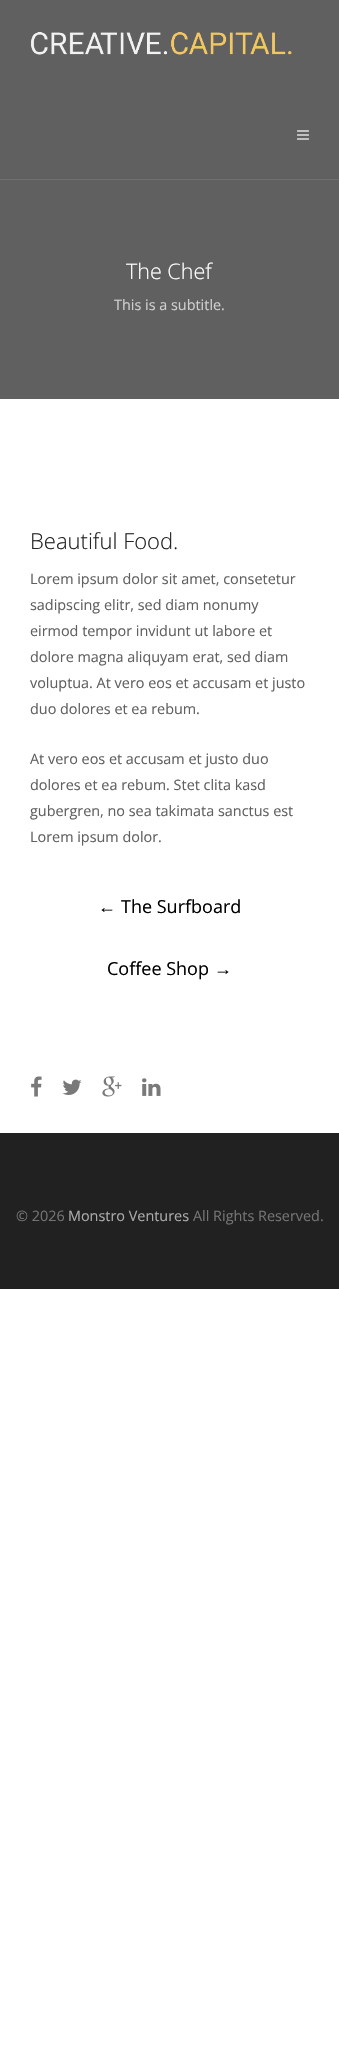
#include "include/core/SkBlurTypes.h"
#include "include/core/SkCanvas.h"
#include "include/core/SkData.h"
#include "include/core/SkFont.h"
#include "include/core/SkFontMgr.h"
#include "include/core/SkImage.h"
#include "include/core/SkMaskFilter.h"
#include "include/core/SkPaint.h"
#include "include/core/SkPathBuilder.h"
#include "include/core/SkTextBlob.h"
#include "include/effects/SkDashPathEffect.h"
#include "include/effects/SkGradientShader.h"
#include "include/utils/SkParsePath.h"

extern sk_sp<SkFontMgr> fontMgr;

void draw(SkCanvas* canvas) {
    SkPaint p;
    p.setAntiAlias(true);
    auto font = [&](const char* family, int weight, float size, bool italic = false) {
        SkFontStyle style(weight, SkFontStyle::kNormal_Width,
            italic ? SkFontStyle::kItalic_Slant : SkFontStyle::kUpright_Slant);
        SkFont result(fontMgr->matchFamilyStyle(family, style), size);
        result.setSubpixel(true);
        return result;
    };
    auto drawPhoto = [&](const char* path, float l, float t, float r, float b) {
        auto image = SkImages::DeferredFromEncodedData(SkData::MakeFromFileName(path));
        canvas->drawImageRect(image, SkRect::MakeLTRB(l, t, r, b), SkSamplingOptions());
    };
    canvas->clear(0xFFFFFFFF);
    p.setColor(0xFF606060);
    canvas->drawRect(SkRect::MakeLTRB(0, 0, 339, 399), p);
    p.setColor(0xFF707070);
    canvas->drawRect(SkRect::MakeLTRB(0, 179, 339, 180), p);
    drawPhoto("media/1.png", 30, 32, 292, 55);
    drawPhoto("media/2.png", 297, 130, 309, 140);
    auto font1 = font("Open Sans", 300, 21.5f);
    p.setColor(0xFFFFFFFF);
    canvas->drawString("The Chef", 126, 279, font1, p);
    auto font2 = font("Open Sans", 400, 14.4f);
    p.setColor(0xFFCFCFCF);
    canvas->drawString("This is a subtitle.", 114, 310, font2, p);
    auto font3 = font("Open Sans", 300, 22);
    p.setColor(0xFF242424);
    canvas->drawString("Beautiful Food.", 30, 549, font3, p);
    p.setColor(0xFF606060);
    {
        const struct { const char* s; float x, y; } items[] = {
            {"Lorem ipsum dolor sit amet, consetetur", 30, 584},
            {"sadipscing elitr, sed diam nonumy", 30, 610},
            {"eirmod tempor invidunt ut labore et", 30, 636},
            {"dolore magna aliquyam erat, sed diam", 30, 662},
            {"voluptua. At vero eos et accusam et justo", 30, 688},
            {"duo dolores et ea rebum.", 30, 714},
            {"At vero eos et accusam et justo duo", 30, 764},
            {"dolores et ea rebum. Stet clita kasd", 30, 790},
            {"gubergren, no sea takimata sanctus est", 30, 816},
            {"Lorem ipsum dolor.", 30, 842},
        };
        for (auto [s, x, y] : items) {
            canvas->drawString(s, x, y, font2, p);
        }
    }
    auto font4 = font("Liberation Sans", 400, 18);
    p.setColor(0xFF000000);
    canvas->drawString("←", 98, 913, font4, p);
    auto font5 = font("Open Sans", 400, 18);
    canvas->drawString("The Surfboard", 121, 913, font5, p);
    canvas->drawString("Coffee Shop", 107, 975, font5, p);
    canvas->drawString("→", 214, 975, font4, p);
    drawPhoto("media/3.png", 31, 1076, 42, 1097);
    drawPhoto("media/4.png", 62, 1079, 82, 1095);
    drawPhoto("media/5.png", 102, 1076, 122, 1097);
    drawPhoto("media/6.png", 142, 1078, 161, 1096);
    p.setColor(0xFF212121);
    canvas->drawRect(SkRect::MakeLTRB(0, 1133, 339, 1289), p);
    p.setColor(0xFF747475);
    canvas->drawString("© 2026", 16, 1221, font2, p);
    p.setColor(0xFFABABAC);
    canvas->drawString("Monstro Ventures", 68, 1221, font2, p);
    p.setColor(0xFF747475);
    canvas->drawString("All Rights Reserved.", 193, 1221, font2, p);
}
